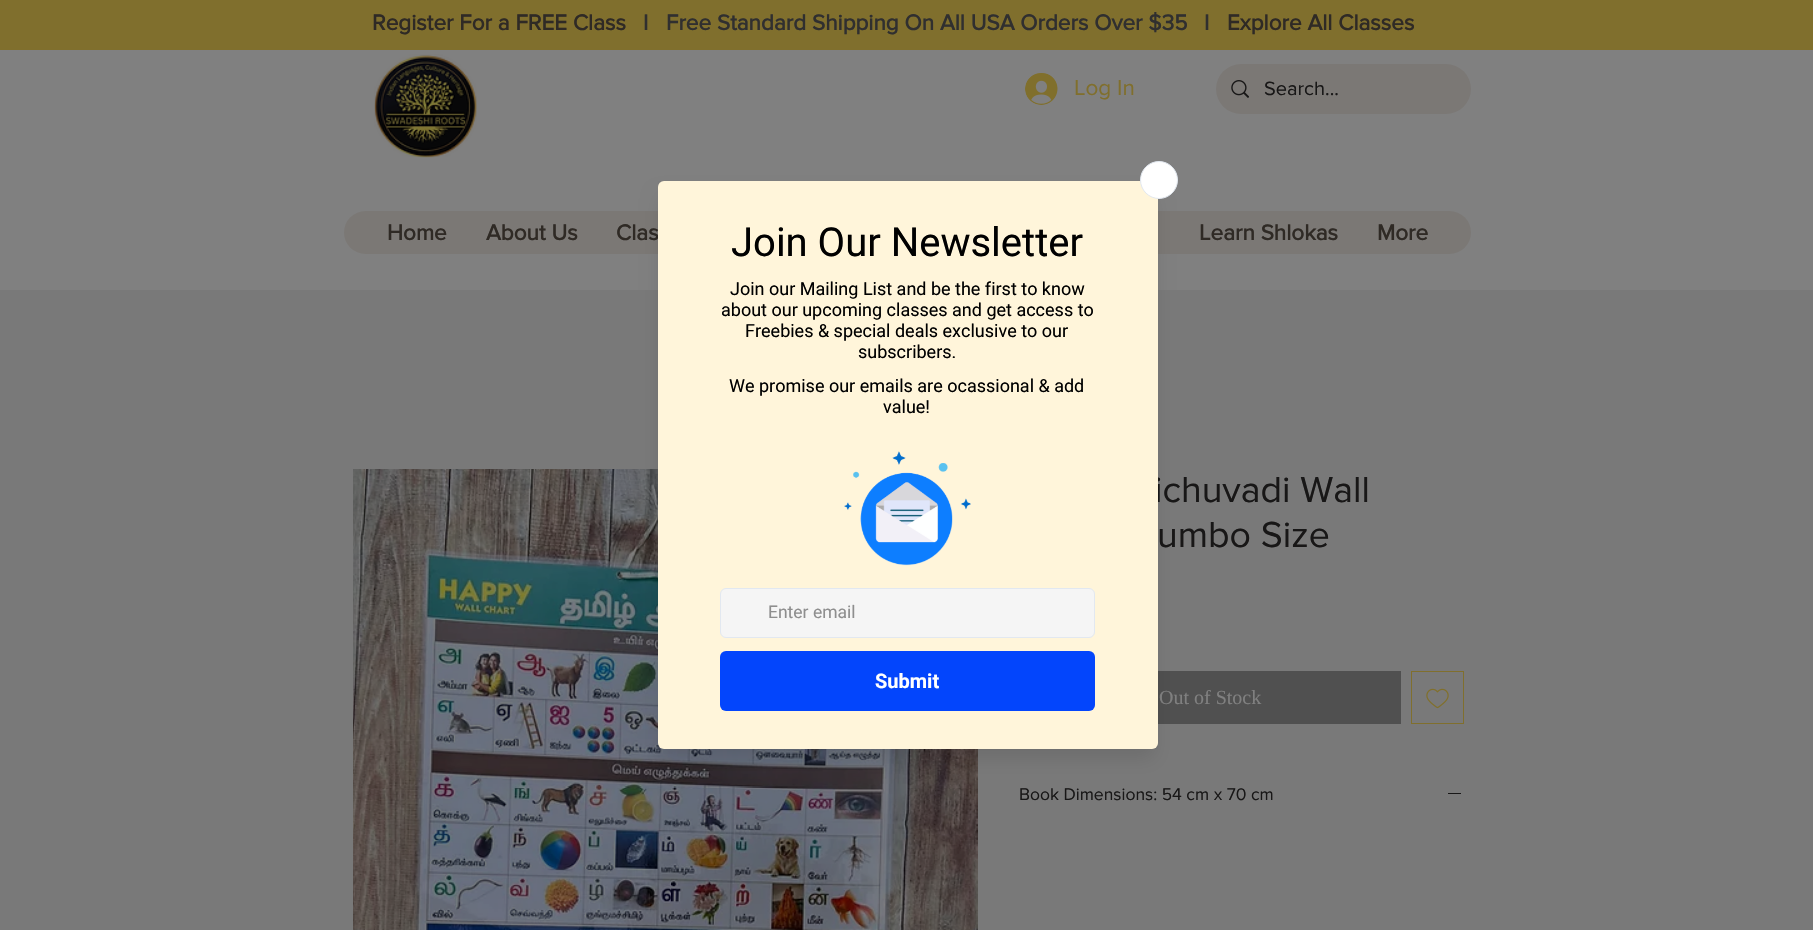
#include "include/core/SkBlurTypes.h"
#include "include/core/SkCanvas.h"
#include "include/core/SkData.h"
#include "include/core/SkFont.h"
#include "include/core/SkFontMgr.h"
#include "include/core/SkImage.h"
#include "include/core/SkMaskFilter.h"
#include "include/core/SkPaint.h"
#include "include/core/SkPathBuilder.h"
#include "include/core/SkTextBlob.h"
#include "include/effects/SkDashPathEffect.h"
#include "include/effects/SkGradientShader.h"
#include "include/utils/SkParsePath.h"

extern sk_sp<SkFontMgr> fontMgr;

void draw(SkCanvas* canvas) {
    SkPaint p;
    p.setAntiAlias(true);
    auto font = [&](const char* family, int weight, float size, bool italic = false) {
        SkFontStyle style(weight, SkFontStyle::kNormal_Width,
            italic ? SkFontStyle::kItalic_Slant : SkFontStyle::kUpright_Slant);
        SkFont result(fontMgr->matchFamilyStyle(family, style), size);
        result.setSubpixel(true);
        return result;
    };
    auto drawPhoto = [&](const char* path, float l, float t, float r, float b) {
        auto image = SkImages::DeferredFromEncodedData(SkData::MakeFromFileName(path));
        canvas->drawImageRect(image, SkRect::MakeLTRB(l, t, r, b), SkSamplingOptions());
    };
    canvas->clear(0xFF797979);
    p.setColor(0xFF806F2D);
    canvas->drawRect(SkRect::MakeLTRB(0, 0, 1813, 50), p);
    auto font1 = font("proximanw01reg", 700, 22.5f);
    p.setColor(0xFF2F2A25);
    canvas->drawString("Register For a FREE Class", 372, 30, font1, p);
    p.setColor(0xFF302F2F);
    {
        const struct { const char* s; float x, y; } items[] = {
            {"I", 643, 30},
            {"Free Standard Shipping On All USA Orders Over $35", 666, 30},
            {"I", 1204, 30},
        };
        for (auto [s, x, y] : items) {
            canvas->drawString(s, x, y, font1, p);
        }
    }
    p.setColor(0xFF2F2A25);
    canvas->drawString("Explore All Classes", 1227, 30, font1, p);
    p.setColor(0xFF808080);
    canvas->drawRect(SkRect::MakeLTRB(0, 50, 1813, 290), p);
    drawPhoto("media/1.png", 374, 54, 478, 158);
    drawPhoto("media/2.png", 1025, 73, 1058, 105);
    auto font2 = font("proximanw01reg", 400, 22.5f);
    p.setColor(0xFF806F2D);
    canvas->drawString("Log In", 1074, 95, font2, p);
    p.setColor(0xFF7B7875);
    canvas->drawRoundRect(SkRect::MakeLTRB(1216, 64, 1471, 114), 25, 25, p);
    drawPhoto("media/3.png", 1231, 80, 1249, 98);
    auto font3 = font("proximanw01reg", 400, 20);
    p.setColor(0xFF181717);
    canvas->drawString("Search...", 1264, 95, font3, p);
    p.setColor(0xFF7B7875);
    canvas->drawRoundRect(SkRect::MakeLTRB(344, 211, 1471, 254), 21.5f, 21.5f, p);
    p.setColor(0xFF2F2A25);
    {
        const struct { const char* s; float x, y; } items[] = {
            {"Home", 387, 240},
            {"About Us", 486, 240},
            {"Clas", 616, 240},
            {"Learn Shlokas", 1199, 240},
            {"More", 1377, 240},
        };
        for (auto [s, x, y] : items) {
            canvas->drawString(s, x, y, font1, p);
        }
    }
    drawPhoto("media/4.png", 353, 469, 978, 930);
    auto font4 = font("proximanw01reg", 400, 37.5f);
    p.setColor(0xFF181717);
    canvas->drawString("ichuvadi Wall", 1154, 502, font4, p);
    canvas->drawString("umbo Size", 1157, 547, font4, p);
    p.setColor(0xFF505050);
    canvas->drawRect(SkRect::MakeLTRB(1158, 671, 1401, 724), p);
    auto font5 = font("Liberation Serif", 400, 20);
    p.setColor(0xFF808080);
    canvas->drawString("Out of Stock", 1159, 704, font5, p);
    p.setStyle(SkPaint::kStroke_Style);
    p.setStrokeWidth(1);
    p.setColor(0xFF806F2D);
    canvas->drawRect(SkRect::MakeLTRB(1411.5f, 671.5f, 1463.5f, 723.5f), p);
    drawPhoto("media/5.png", 1426, 688, 1449, 709);
    auto font6 = font("proximanw01reg", 400, 17.5f);
    p.setStyle(SkPaint::kFill_Style);
    p.setColor(0xFF181717);
    canvas->drawString("Book Dimensions: 54 cm x 70 cm", 1019, 800, font6, p);
    canvas->drawRect(SkRect::MakeLTRB(1448, 793, 1461, 794), p);
    p.setColor(0x1A000000);
    p.setMaskFilter(SkMaskFilter::MakeBlur(kNormal_SkBlurStyle, 9.5f));
    canvas->drawRoundRect(SkRect::MakeLTRB(661, 198, 1154, 758), 2.5f, 2.5f, p);
    p.setMaskFilter(nullptr);
    canvas->save();
    canvas->clipRect(SkRect::MakeLTRB(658, 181, 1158, 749));
    p.setColor(0x1F000000);
    p.setMaskFilter(SkMaskFilter::MakeBlur(kNormal_SkBlurStyle, 12.5f));
    canvas->drawRoundRect(SkRect::MakeLTRB(661, 185, 1154, 745), 2.5f, 2.5f, p);
    p.setMaskFilter(nullptr);
    canvas->restore();
    p.setColor(0xFFFFF5DA);
    canvas->drawRoundRect(SkRect::MakeLTRB(658, 181, 1158, 749), 6, 6, p);
    p.setColor(0xFFFFFFFF);
    canvas->drawCircle(1159, 180, 18.5f, p);
    p.setStyle(SkPaint::kStroke_Style);
    p.setColor(0xFFE2E8F0);
    canvas->drawCircle(1159, 180, 18.5f, p);
    auto font7 = font("Roboto", 400, 40);
    p.setStyle(SkPaint::kFill_Style);
    p.setColor(0xFF000000);
    canvas->drawString("Join Our Newsletter", 731, 256, font7, p);
    auto font8 = font("Roboto", 400, 18);
    {
        const struct { const char* s; float x, y; } items[] = {
            {"Join our Mailing List and be the first to know", 730, 295},
            {"about our upcoming classes and get access to", 721, 316},
            {"Freebies & special deals exclusive to our", 745, 337},
            {"subscribers.", 858, 358},
            {"We promise our emails are ocassional & add", 729, 392},
            {"value!", 883, 413},
        };
        for (auto [s, x, y] : items) {
            canvas->drawString(s, x, y, font8, p);
        }
    }
    drawPhoto("media/6.png", 844, 451, 971, 566);
    p.setColor(0xFFF5F5F5);
    canvas->drawRoundRect(SkRect::MakeLTRB(720.5f, 588.5f, 1094.5f, 637.5f), 5.5f, 5.5f, p);
    p.setStyle(SkPaint::kStroke_Style);
    p.setColor(0xFFE2E8F0);
    canvas->drawRoundRect(SkRect::MakeLTRB(720.5f, 588.5f, 1094.5f, 637.5f), 5.5f, 5.5f, p);
    auto font9 = font("Roboto", 400, 17.5f);
    p.setStyle(SkPaint::kFill_Style);
    p.setColor(0xFF8E8E8E);
    canvas->drawString("Enter email", 768, 618, font9, p);
    p.setColor(0xFF0345FC);
    canvas->drawRoundRect(SkRect::MakeLTRB(720, 651, 1095, 711), 6, 6, p);
    auto font10 = font("Roboto", 700, 20);
    p.setColor(0xFFFFFFFF);
    canvas->drawString("Submit", 875, 688, font10, p);
}
